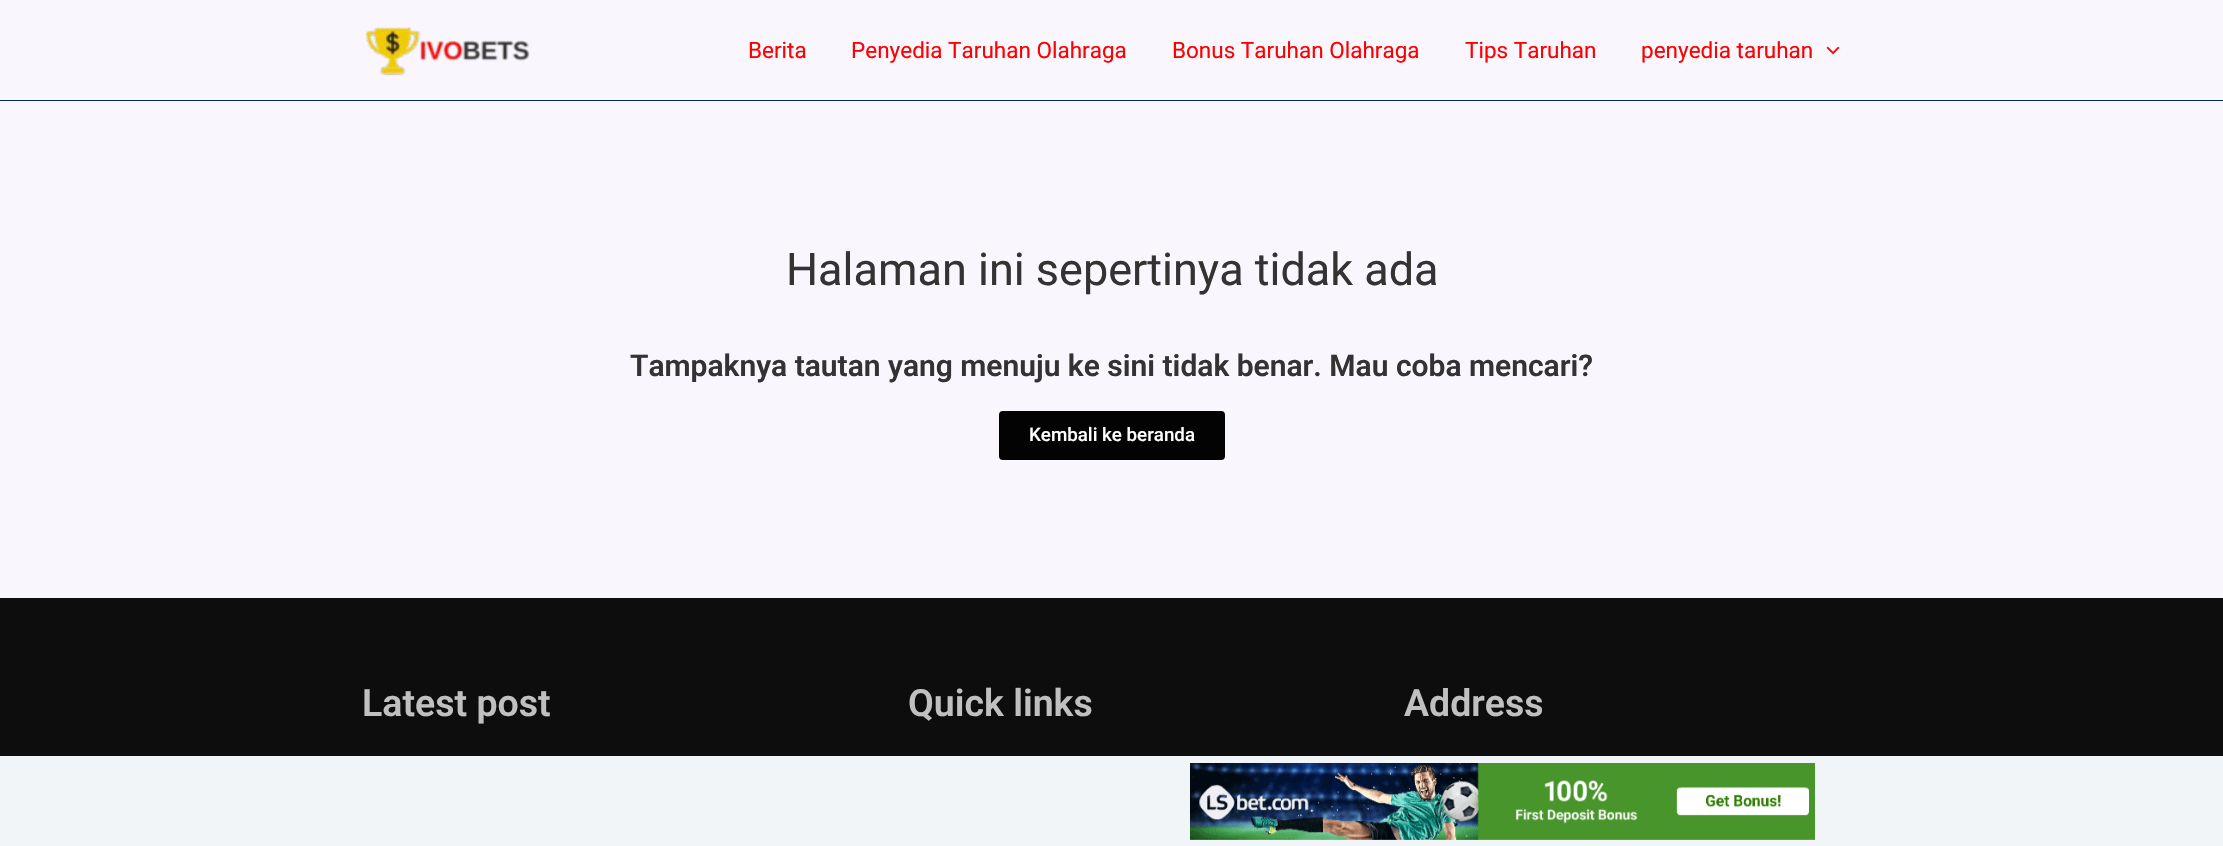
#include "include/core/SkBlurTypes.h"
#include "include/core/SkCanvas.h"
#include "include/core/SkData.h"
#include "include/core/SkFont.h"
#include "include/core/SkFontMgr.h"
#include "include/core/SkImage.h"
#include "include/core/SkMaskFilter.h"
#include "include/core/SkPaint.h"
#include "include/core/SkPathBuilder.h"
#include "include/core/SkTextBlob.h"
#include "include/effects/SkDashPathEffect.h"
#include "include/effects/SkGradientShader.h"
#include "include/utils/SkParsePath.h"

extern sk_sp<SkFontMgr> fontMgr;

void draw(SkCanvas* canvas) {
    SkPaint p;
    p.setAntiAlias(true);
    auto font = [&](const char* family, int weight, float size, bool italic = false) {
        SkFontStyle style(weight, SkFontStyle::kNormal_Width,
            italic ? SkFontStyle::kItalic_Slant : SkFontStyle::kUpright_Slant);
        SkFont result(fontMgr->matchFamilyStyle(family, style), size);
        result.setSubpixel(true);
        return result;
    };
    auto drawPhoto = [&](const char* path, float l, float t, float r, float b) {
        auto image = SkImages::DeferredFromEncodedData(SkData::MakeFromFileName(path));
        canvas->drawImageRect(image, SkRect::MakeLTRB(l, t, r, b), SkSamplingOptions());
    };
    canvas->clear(0xFFF9F6FE);
    p.setColor(0xFF002776);
    canvas->drawRect(SkRect::MakeLTRB(0, 100, 2223, 101), p);
    drawPhoto("media/1.png", 365, 27, 530, 76);
    auto font1 = font("Roboto", 400, 22.5f);
    p.setColor(0xFFFF0000);
    {
        const struct { const char* s; float x, y; } items[] = {
            {"Berita", 748, 58},
            {"Penyedia Taruhan Olahraga", 851, 58},
            {"Bonus Taruhan Olahraga", 1172, 58},
            {"Tips Taruhan", 1465, 58},
            {"penyedia taruhan", 1641, 58},
        };
        for (auto [s, x, y] : items) {
            canvas->drawString(s, x, y, font1, p);
        }
    }
    drawPhoto("media/2.png", 1826, 46, 1840, 55);
    auto font2 = font("Roboto", 400, 45);
    p.setColor(0xFF333333);
    canvas->drawString("Halaman ini sepertinya tidak ada", 786, 285, font2, p);
    auto font3 = font("Roboto", 600, 30);
    canvas->drawString("Tampaknya tautan yang menuju ke sini tidak benar. Mau coba mencari?", 630, 376, font3, p);
    p.setColor(0xFF030303);
    canvas->drawRoundRect(SkRect::MakeLTRB(999, 411, 1225, 460), 4, 4, p);
    auto font4 = font("Roboto", 500, 18.75f);
    p.setColor(0xFFFFFFFF);
    canvas->drawString("Kembali ke beranda", 1029, 441, font4, p);
    p.setColor(0xFF0D0D0D);
    canvas->drawRect(SkRect::MakeLTRB(0, 598, 2223, 756), p);
    auto font5 = font("Roboto", 600, 37.5f);
    p.setColor(0xFFC0C0C0);
    {
        const struct { const char* s; float x, y; } items[] = {
            {"Latest post", 362, 716},
            {"Quick links", 908, 716},
            {"Address", 1404, 716},
        };
        for (auto [s, x, y] : items) {
            canvas->drawString(s, x, y, font5, p);
        }
    }
    p.setColor(0xFFF2F5F7);
    canvas->drawRect(SkRect::MakeLTRB(0, 756, 2223, 846), p);
    drawPhoto("media/3.png", 1190, 763, 1815, 840);
}
